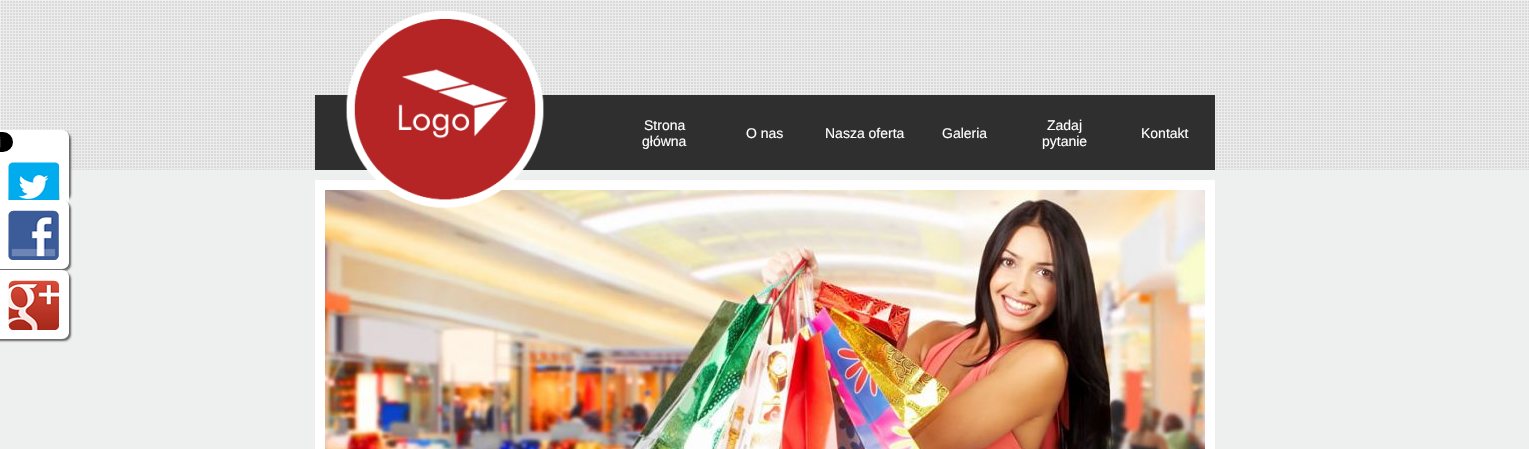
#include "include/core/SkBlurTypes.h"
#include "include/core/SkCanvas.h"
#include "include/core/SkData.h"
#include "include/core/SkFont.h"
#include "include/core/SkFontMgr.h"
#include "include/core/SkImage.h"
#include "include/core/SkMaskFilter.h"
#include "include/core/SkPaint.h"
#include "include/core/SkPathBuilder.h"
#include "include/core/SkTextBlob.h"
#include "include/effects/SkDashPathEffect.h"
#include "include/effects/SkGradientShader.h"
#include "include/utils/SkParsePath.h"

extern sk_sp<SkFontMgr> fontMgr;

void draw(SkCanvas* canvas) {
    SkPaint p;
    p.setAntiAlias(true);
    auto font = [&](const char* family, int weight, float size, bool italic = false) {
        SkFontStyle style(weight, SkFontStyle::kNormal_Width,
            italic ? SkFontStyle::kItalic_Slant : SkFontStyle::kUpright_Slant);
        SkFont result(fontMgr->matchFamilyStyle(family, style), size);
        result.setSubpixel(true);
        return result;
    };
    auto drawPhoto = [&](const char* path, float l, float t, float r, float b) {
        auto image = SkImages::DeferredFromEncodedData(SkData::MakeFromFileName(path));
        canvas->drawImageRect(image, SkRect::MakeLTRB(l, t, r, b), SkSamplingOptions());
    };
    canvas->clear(0xFFEEF0F0);
    drawPhoto("media/5.png", 1, 1, 1529, 170);
    p.setColor(0xFF666666);
    p.setMaskFilter(SkMaskFilter::MakeBlur(kNormal_SkBlurStyle, 1));
    canvas->drawRoundRect(SkRect::MakeLTRB(-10, 132, 71, 201), 7, 7, p);
    p.setMaskFilter(nullptr);
    p.setColor(0xFFFFFFFF);
    canvas->drawPath(SkPathBuilder().moveTo(-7, 130).lineTo(62, 130).cubicTo(66, 130, 69, 133, 69, 137).lineTo(69, 192).cubicTo(69, 196, 66, 199, 62, 199).lineTo(-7, 199).close().detach(), p);
    drawPhoto("media/1.png", 0, 132, 13, 152);
    canvas->drawPath(SkPathBuilder().moveTo(0, 152).lineTo(62, 152).cubicTo(66, 152, 69, 155, 69, 159).lineTo(69, 214).cubicTo(69, 218, 66, 221, 62, 221).lineTo(0, 221).close().detach(), p);
    drawPhoto("media/2.png", 8, 162, 60, 200);
    p.setColor(0xFF666666);
    p.setMaskFilter(SkMaskFilter::MakeBlur(kNormal_SkBlurStyle, 1));
    canvas->drawRoundRect(SkRect::MakeLTRB(-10, 202, 71, 271), 7, 7, p);
    p.setMaskFilter(nullptr);
    p.setColor(0xFFFFFFFF);
    canvas->drawPath(SkPathBuilder().moveTo(0, 200).lineTo(62, 200).cubicTo(66, 200, 69, 203, 69, 207).lineTo(69, 262).cubicTo(69, 266, 66, 269, 62, 269).lineTo(0, 269).close().detach(), p);
    drawPhoto("media/3.png", 8, 210, 59, 260);
    p.setColor(0xFF666666);
    p.setMaskFilter(SkMaskFilter::MakeBlur(kNormal_SkBlurStyle, 1));
    canvas->drawRoundRect(SkRect::MakeLTRB(-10, 272, 71, 341), 7, 7, p);
    p.setMaskFilter(nullptr);
    p.setColor(0xFFFFFFFF);
    canvas->drawPath(SkPathBuilder().moveTo(0, 270).lineTo(62, 270).cubicTo(66, 270, 69, 273, 69, 277).lineTo(69, 332).cubicTo(69, 336, 66, 339, 62, 339).lineTo(0, 339).close().detach(), p);
    drawPhoto("media/4.png", 8, 280, 59, 330);
    p.setColor(0xFF2F2F2F);
    canvas->drawRect(SkRect::MakeLTRB(315, 95, 1215, 170), p);
    p.setColor(0xFFFFFFFF);
    canvas->drawRect(SkRect::MakeLTRB(315, 180, 1215, 449), p);
    drawPhoto("media/7.png", 325, 190, 1205, 449);
    drawPhoto("media/6.png", 346, 10, 544, 208);
    auto font1 = font("Liberation Sans", 400, 14);
    {
        const struct { const char* s; float x, y; } items[] = {
            {"Strona", 644, 130},
            {"główna", 642, 146},
            {"O nas", 746, 138},
            {"Nasza oferta", 825, 138},
            {"Galeria", 942, 138},
            {"Zadaj", 1047, 130},
            {"pytanie", 1042, 146},
            {"Kontakt", 1141, 138},
        };
        for (auto [s, x, y] : items) {
            canvas->drawString(s, x, y, font1, p);
        }
    }
}
